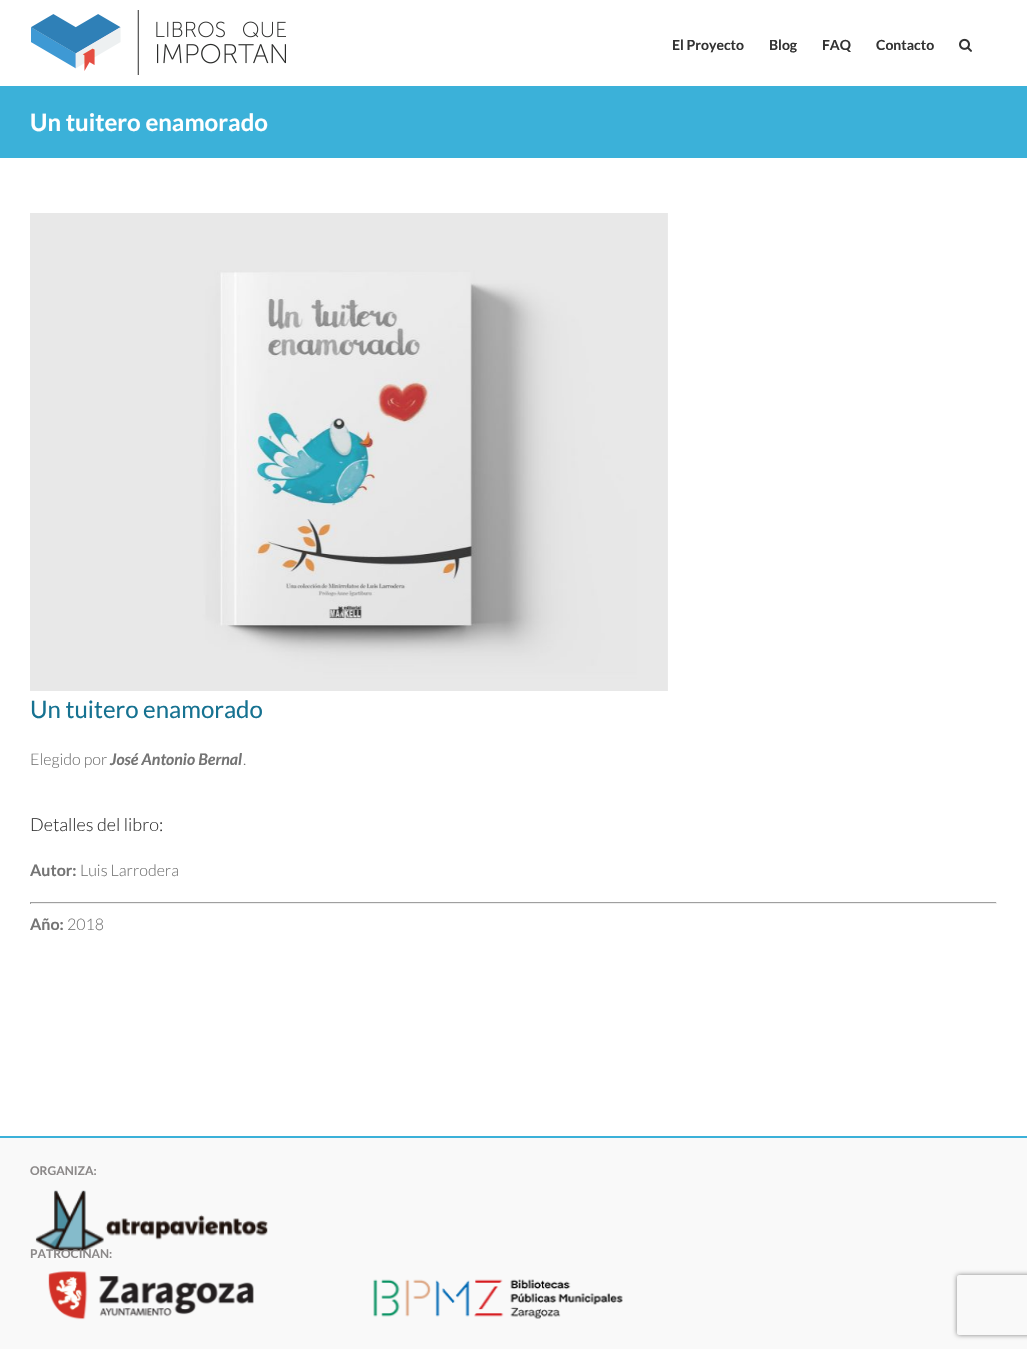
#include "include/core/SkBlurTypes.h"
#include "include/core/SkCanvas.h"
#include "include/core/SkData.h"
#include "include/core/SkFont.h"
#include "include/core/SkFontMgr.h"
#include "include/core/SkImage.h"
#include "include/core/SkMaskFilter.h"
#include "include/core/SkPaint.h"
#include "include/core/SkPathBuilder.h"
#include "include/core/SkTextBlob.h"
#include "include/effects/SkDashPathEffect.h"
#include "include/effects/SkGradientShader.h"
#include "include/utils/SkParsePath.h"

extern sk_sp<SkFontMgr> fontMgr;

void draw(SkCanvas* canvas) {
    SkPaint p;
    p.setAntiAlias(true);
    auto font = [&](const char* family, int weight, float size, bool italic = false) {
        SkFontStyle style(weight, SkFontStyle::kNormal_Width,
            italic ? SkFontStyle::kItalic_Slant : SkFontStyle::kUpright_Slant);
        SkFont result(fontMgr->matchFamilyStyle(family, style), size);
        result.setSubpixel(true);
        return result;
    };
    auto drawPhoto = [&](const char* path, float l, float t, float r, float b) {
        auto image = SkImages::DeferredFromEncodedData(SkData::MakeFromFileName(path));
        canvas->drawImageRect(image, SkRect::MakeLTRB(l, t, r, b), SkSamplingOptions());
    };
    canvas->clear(0xFFFFFFFF);
    drawPhoto("media/1.png", 31, 10, 286, 75);
    auto font1 = font("Lato", 700, 14);
    p.setColor(0xFF333333);
    {
        const struct { const char* s; float x, y; } items[] = {
            {"El Proyecto", 672, 50},
            {"Blog", 769, 50},
            {"FAQ", 822, 50},
            {"Contacto", 876, 50},
        };
        for (auto [s, x, y] : items) {
            canvas->drawString(s, x, y, font1, p);
        }
    }
    drawPhoto("media/2.png", 959, 38, 972, 52);
    p.setColor(0xFF3BB1D9);
    canvas->drawRect(SkRect::MakeLTRB(0, 86, 1027, 158), p);
    auto font2 = font("Lato", 700, 24);
    p.setColor(0xFFFFFFFF);
    canvas->drawString("Un tuitero enamorado", 30, 131, font2, p);
    drawPhoto("media/3.png", 30, 213, 668, 691);
    auto font3 = font("Lato", 400, 24);
    p.setColor(0xFF167291);
    canvas->drawString("Un tuitero enamorado", 30, 718, font3, p);
    auto font4 = font("Lato", 300, 16);
    p.setColor(0xFF747474);
    canvas->drawString("Elegido por", 30, 765, font4, p);
    auto font5 = font("Lato", 700, 16, true);
    canvas->drawString("José Antonio Bernal", 110, 765, font5, p);
    canvas->drawString(".", 243, 765, font4, p);
    auto font6 = font("Lato", 300, 18);
    p.setColor(0xFF333333);
    canvas->drawString("Detalles del libro:", 30, 831, font6, p);
    auto font7 = font("Lato", 700, 16);
    p.setColor(0xFF747474);
    canvas->drawString("Autor:", 30, 876, font7, p);
    canvas->drawString("Luis Larrodera", 80, 876, font4, p);
    {
        const struct { float l, t, r, b; SkColor color; } items[] = {
            {30, 902, 997, 903, 0xFF9F9F9F},
            {996, 902, 997, 904, 0xFFEEEEEE},
            {30, 903, 997, 904, 0xFFEEEEEE},
            {30, 902, 31, 904, 0xFF9F9F9F},
        };
        for (auto [l, t, r, b, color] : items) {
            p.setColor(color);
            canvas->drawRect(SkRect::MakeLTRB(l, t, r, b), p);
        }
    }
    p.setColor(0xFF747474);
    canvas->drawString("Año:", 30, 930, font7, p);
    canvas->drawString("2018", 67, 930, font4, p);
    p.setColor(0xFFF9F9F9);
    canvas->drawRect(SkRect::MakeLTRB(0, 1138, 1027, 1349), p);
    p.setColor(0xFF3BB1D9);
    canvas->drawRect(SkRect::MakeLTRB(0, 1136, 1027, 1138), p);
    auto font8 = font("Lato", 700, 12);
    p.setColor(0xFF8C8989);
    canvas->drawString("ORGANIZA:", 30, 1175, font8, p);
    drawPhoto("media/4.png", 35, 1190, 268, 1252);
    canvas->drawString("PATROCINAN:", 30, 1258, font8, p);
    drawPhoto("media/5.png", 48, 1271, 254, 1320);
    drawPhoto("media/6.png", 373, 1279, 623, 1319);
    canvas->save();
    canvas->clipPath(SkPathBuilder(SkPathFillType::kEvenOdd).moveTo(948, 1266).lineTo(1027, 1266).lineTo(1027, 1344).lineTo(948, 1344).close().moveTo(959, 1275).lineTo(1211, 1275).cubicTo(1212, 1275, 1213, 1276, 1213, 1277).lineTo(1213, 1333).cubicTo(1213, 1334, 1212, 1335, 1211, 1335).lineTo(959, 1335).cubicTo(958, 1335, 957, 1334, 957, 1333).lineTo(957, 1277).cubicTo(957, 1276, 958, 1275, 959, 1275).close().detach(), true);
    p.setColor(0xFF808080);
    p.setMaskFilter(SkMaskFilter::MakeBlur(kNormal_SkBlurStyle, 2.5f));
    canvas->drawRoundRect(SkRect::MakeLTRB(957, 1275, 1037, 1335), 2, 2, p);
    p.setMaskFilter(nullptr);
    canvas->restore();
}
